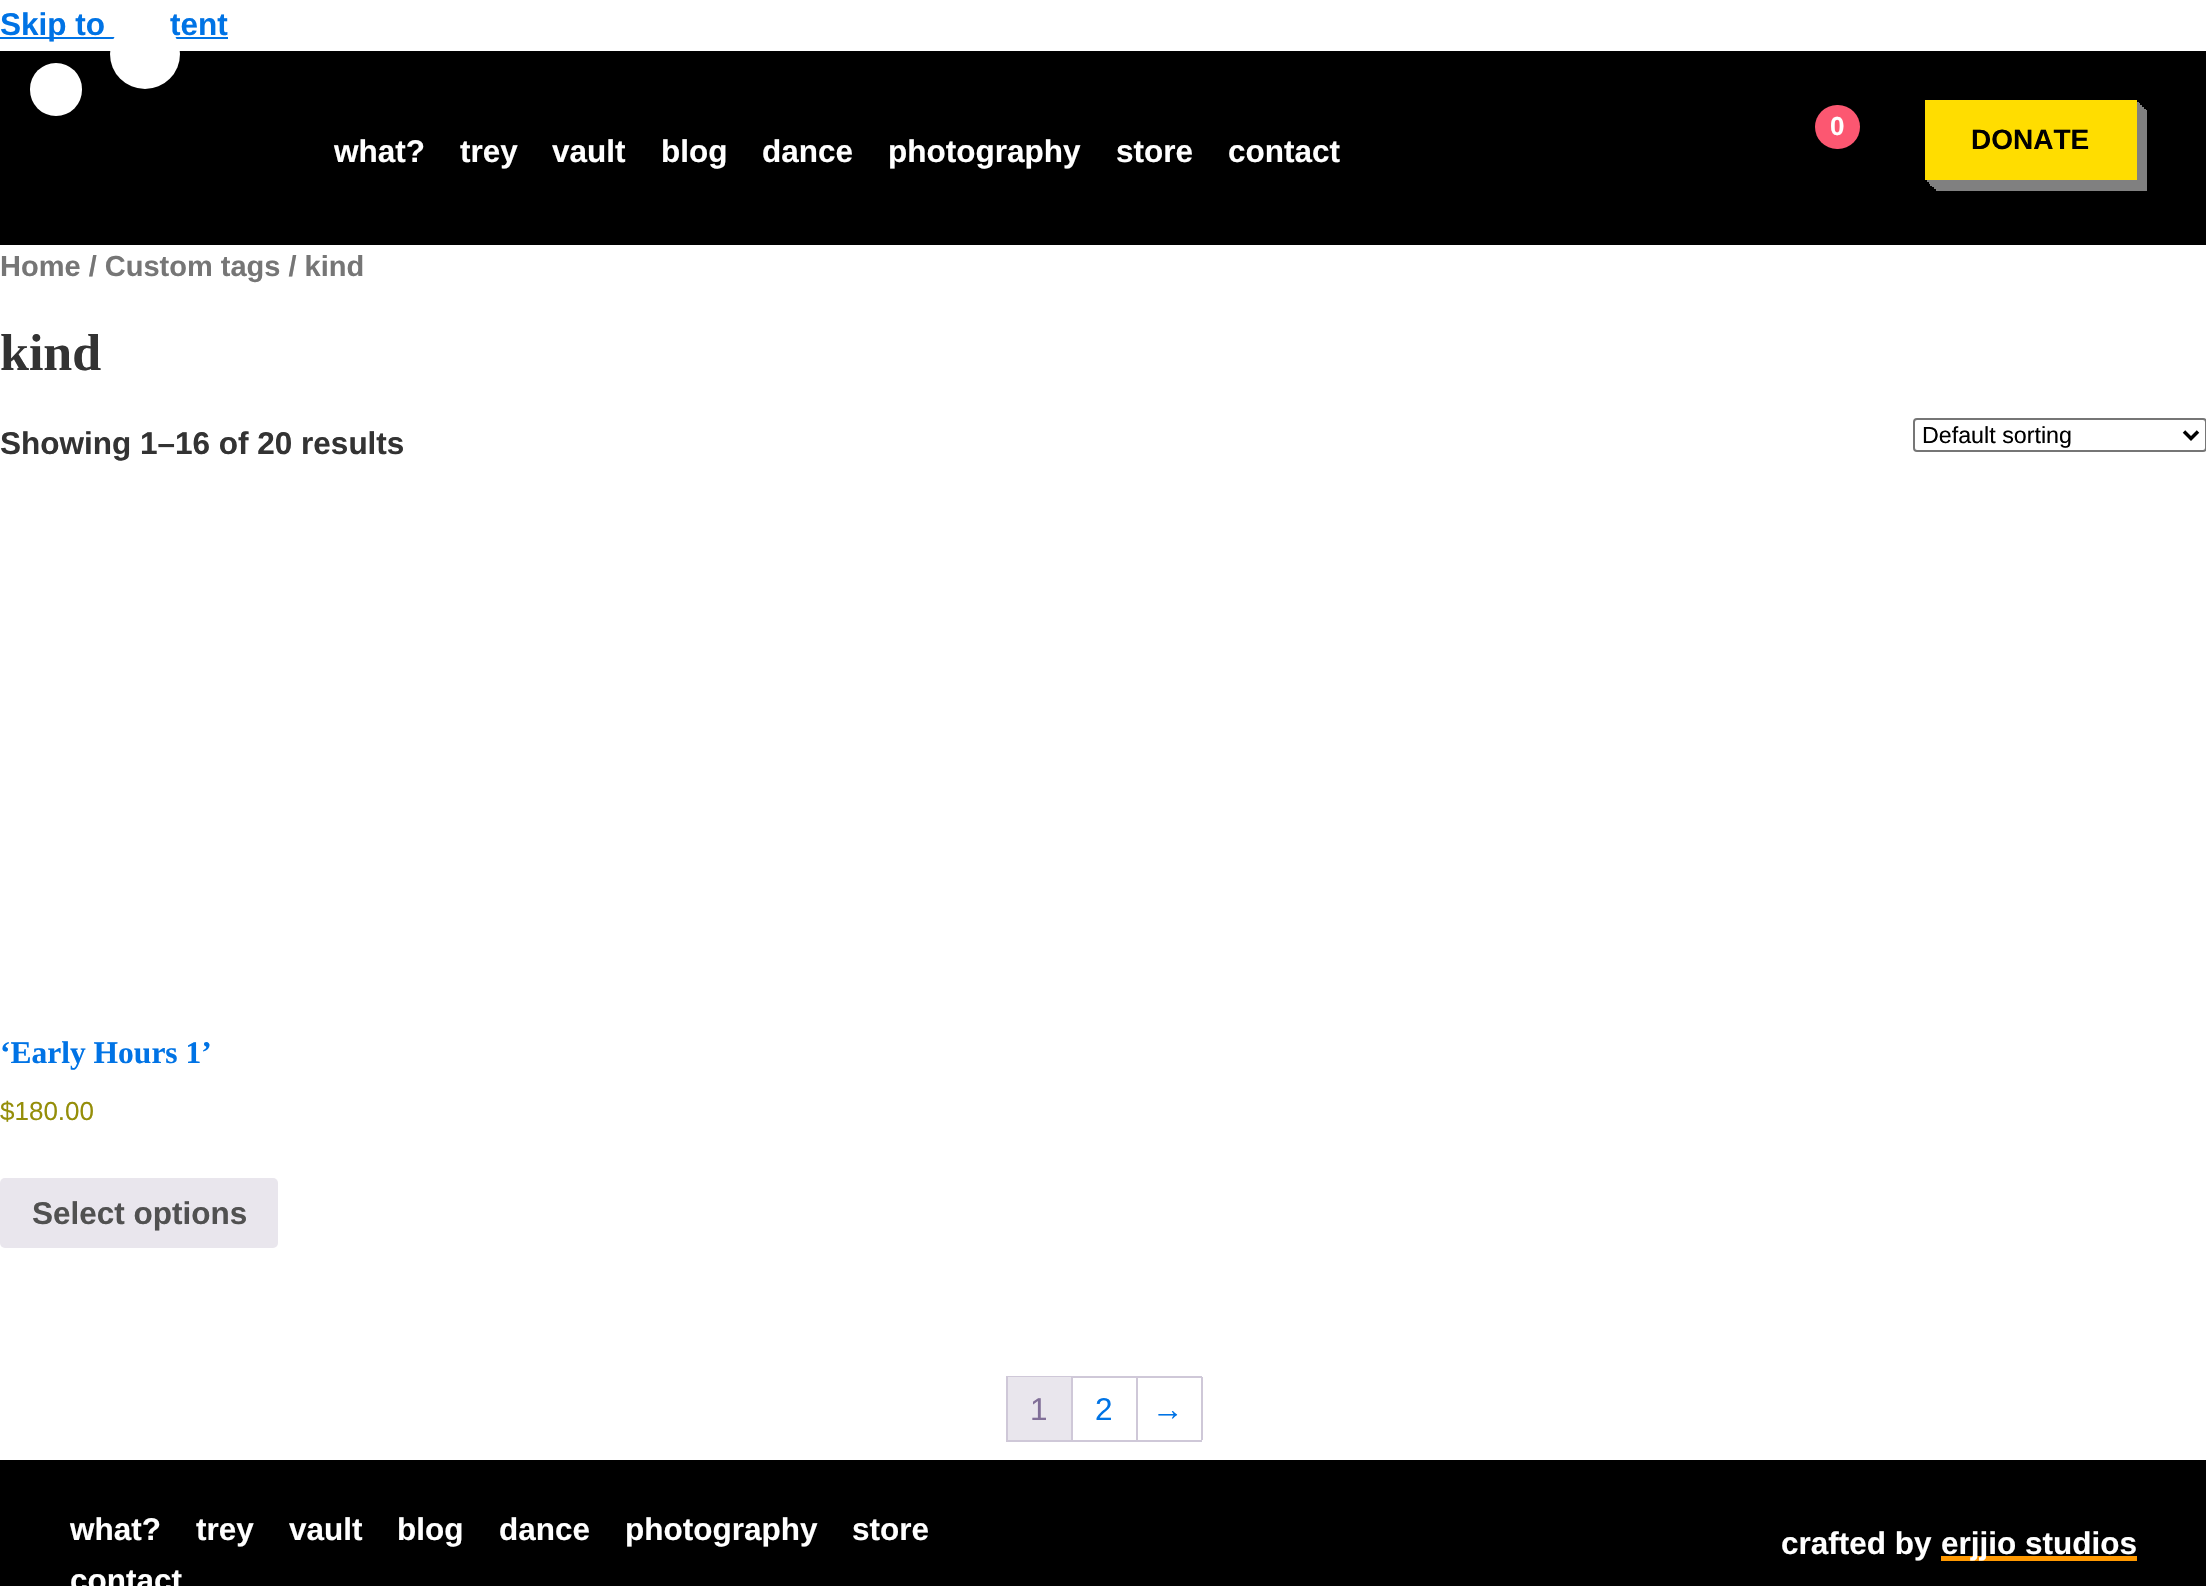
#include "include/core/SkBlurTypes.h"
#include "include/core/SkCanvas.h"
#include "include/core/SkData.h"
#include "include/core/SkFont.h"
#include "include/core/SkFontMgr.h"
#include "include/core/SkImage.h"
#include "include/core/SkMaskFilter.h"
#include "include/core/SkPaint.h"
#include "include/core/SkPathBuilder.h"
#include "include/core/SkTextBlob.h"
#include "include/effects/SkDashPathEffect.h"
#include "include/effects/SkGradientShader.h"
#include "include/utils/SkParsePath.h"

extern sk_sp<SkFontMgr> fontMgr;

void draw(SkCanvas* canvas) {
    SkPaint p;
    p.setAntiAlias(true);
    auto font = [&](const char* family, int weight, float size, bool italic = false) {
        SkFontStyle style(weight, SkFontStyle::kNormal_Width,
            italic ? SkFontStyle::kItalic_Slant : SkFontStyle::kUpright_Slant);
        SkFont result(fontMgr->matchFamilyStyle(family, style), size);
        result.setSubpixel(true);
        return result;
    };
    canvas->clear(0xFFFFFFFF);
    p.setColor(0xFF0073E5);
    canvas->drawRect(SkRect::MakeLTRB(0, 37, 228, 39), p);
    auto font1 = font("Liberation Sans", 700, 31.5f);
    canvas->drawString("Skip to", 0, 35, font1, p);
    canvas->drawString("tent", 170, 35, font1, p);
    p.setColor(0xFF000000);
    canvas->drawRect(SkRect::MakeLTRB(0, 51, 2206, 245), p);
    p.setColor(0xFFFFFFFF);
    canvas->drawRoundRect(SkRect::MakeLTRB(30, 63, 82, 116), 26, 26, p);
    canvas->drawCircle(145, 54, 35, p);
    p.setColor(0xFFFC5771);
    canvas->drawRoundRect(SkRect::MakeLTRB(1815, 105, 1860, 149), 22, 22, p);
    auto font2 = font("Liberation Sans", 700, 26);
    p.setColor(0xFFFFFFFF);
    canvas->drawString("0", 1830, 135, font2, p);
    p.setColor(0xFF808080);
    canvas->drawPath(SkPathBuilder().moveTo(1927, 180).lineTo(1927, 182).lineTo(2139, 182).lineTo(2139, 102).lineTo(2137, 102).lineTo(2137, 180).close().detach(), p);
    canvas->drawPath(SkPathBuilder().moveTo(1929, 180).lineTo(1929, 184).lineTo(2140, 184).lineTo(2140, 103).lineTo(2137, 103).lineTo(2137, 180).close().detach(), p);
    canvas->drawPath(SkPathBuilder().moveTo(1930, 180).lineTo(1930, 186).lineTo(2142, 186).lineTo(2142, 105).lineTo(2137, 105).lineTo(2137, 180).close().detach(), p);
    canvas->drawPath(SkPathBuilder().moveTo(1932, 180).lineTo(1932, 187).lineTo(2144, 187).lineTo(2144, 107).lineTo(2137, 107).lineTo(2137, 180).close().detach(), p);
    canvas->drawPath(SkPathBuilder().moveTo(1934, 180).lineTo(1934, 189).lineTo(2146, 189).lineTo(2146, 109).lineTo(2137, 109).lineTo(2137, 180).close().detach(), p);
    canvas->drawPath(SkPathBuilder().moveTo(1936, 180).lineTo(1936, 191).lineTo(2147, 191).lineTo(2147, 110).lineTo(2137, 110).lineTo(2137, 180).close().detach(), p);
    p.setColor(0xFFFFDD00);
    canvas->drawRect(SkRect::MakeLTRB(1925, 100, 2137, 180), p);
    auto font3 = font("Liberation Sans", 700, 28);
    p.setColor(0xFF000000);
    canvas->drawString("DONATE", 1971, 149, font3, p);
    p.setColor(0xFFFFFFFF);
    {
        const struct { const char* s; float x, y; } items[] = {
            {"what?", 334, 162},
            {"trey", 460, 162},
            {"vault", 552, 162},
            {"blog", 661, 162},
            {"dance", 762, 162},
            {"photography", 888, 162},
            {"store", 1116, 162},
            {"contact", 1228, 162},
        };
        for (auto [s, x, y] : items) {
            canvas->drawString(s, x, y, font1, p);
        }
    }
    auto font4 = font("Liberation Sans", 700, 29);
    p.setColor(0xFF767676);
    canvas->drawString("Home / Custom tags / kind", 0, 276, font4, p);
    auto font5 = font("Liberation Serif", 700, 52);
    p.setColor(0xFF333333);
    canvas->drawString("kind", 0, 370, font5, p);
    canvas->drawString("Showing 1–16 of 20 results", 0, 454, font1, p);
    p.setStyle(SkPaint::kStroke_Style);
    p.setStrokeWidth(2);
    p.setColor(0xFF767676);
    canvas->drawRoundRect(SkRect::MakeLTRB(1914, 419, 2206, 451), 3, 3, p);
    p.setStrokeWidth(3.5f);
    p.setColor(0xFF000000);
    canvas->drawPath(SkPathBuilder().moveTo(2184, 431.5f).lineTo(2191, 438.5f).lineTo(2198, 431.5f).detach(), p);
    auto font6 = font("Liberation Sans", 400, 23.25f);
    p.setStyle(SkPaint::kFill_Style);
    canvas->drawString("Default sorting", 1922, 443, font6, p);
    auto font7 = font("Liberation Serif", 700, 31.5f);
    p.setColor(0xFF0073E5);
    canvas->drawString("‘Early Hours 1’", 0, 1063, font7, p);
    auto font8 = font("Liberation Sans", 400, 26);
    p.setColor(0xFF958E09);
    canvas->drawString("$180.00", 0, 1120, font8, p);
    p.setColor(0xFFE9E6ED);
    canvas->drawRoundRect(SkRect::MakeLTRB(0, 1178, 278, 1248), 5, 5, p);
    p.setColor(0xFF515151);
    canvas->drawString("Select options", 32, 1224, font1, p);
    {
        const struct { float l, t, r, b; SkColor color; } items[] = {
            {1006, 1376, 1202, 1378, 0xFFCFC8D8},
            {1006, 1440, 1202, 1442, 0xFFCFC8D8},
            {1006, 1376, 1008, 1442, 0xFFCFC8D8},
            {1071, 1377, 1073, 1440, 0xFFCFC8D8},
            {1008, 1377, 1071, 1440, 0xFFE9E6ED},
        };
        for (auto [l, t, r, b, color] : items) {
            p.setColor(color);
            canvas->drawRect(SkRect::MakeLTRB(l, t, r, b), p);
        }
    }
    auto font9 = font("Liberation Sans", 400, 31.5f);
    p.setColor(0xFF816F98);
    canvas->drawString("1", 1030, 1420, font9, p);
    p.setColor(0xFFCFC8D8);
    canvas->drawRect(SkRect::MakeLTRB(1136, 1377, 1138, 1440), p);
    p.setColor(0xFF0073E5);
    canvas->drawString("2", 1095, 1420, font9, p);
    p.setColor(0xFFCFC8D8);
    canvas->drawRect(SkRect::MakeLTRB(1201, 1377, 1203, 1440), p);
    p.setColor(0xFF0073E5);
    canvas->drawString("→", 1152, 1420, font9, p);
    p.setColor(0xFF000000);
    canvas->drawRect(SkRect::MakeLTRB(0, 1460, 2206, 1586), p);
    p.setColor(0xFFFFFFFF);
    {
        const struct { const char* s; float x, y; } items[] = {
            {"what?", 70, 1540},
            {"trey", 196, 1540},
            {"vault", 289, 1540},
            {"blog", 397, 1540},
            {"dance", 499, 1540},
            {"photography", 625, 1540},
            {"store", 852, 1540},
            {"contact", 70, 1591},
            {"crafted by", 1781, 1554},
        };
        for (auto [s, x, y] : items) {
            canvas->drawString(s, x, y, font1, p);
        }
    }
    p.setColor(0xFFFF9800);
    canvas->drawRect(SkRect::MakeLTRB(1941, 1556, 2137, 1561), p);
    p.setColor(0xFFFFFFFF);
    canvas->drawString("erjjio studios", 1941, 1554, font1, p);
}
